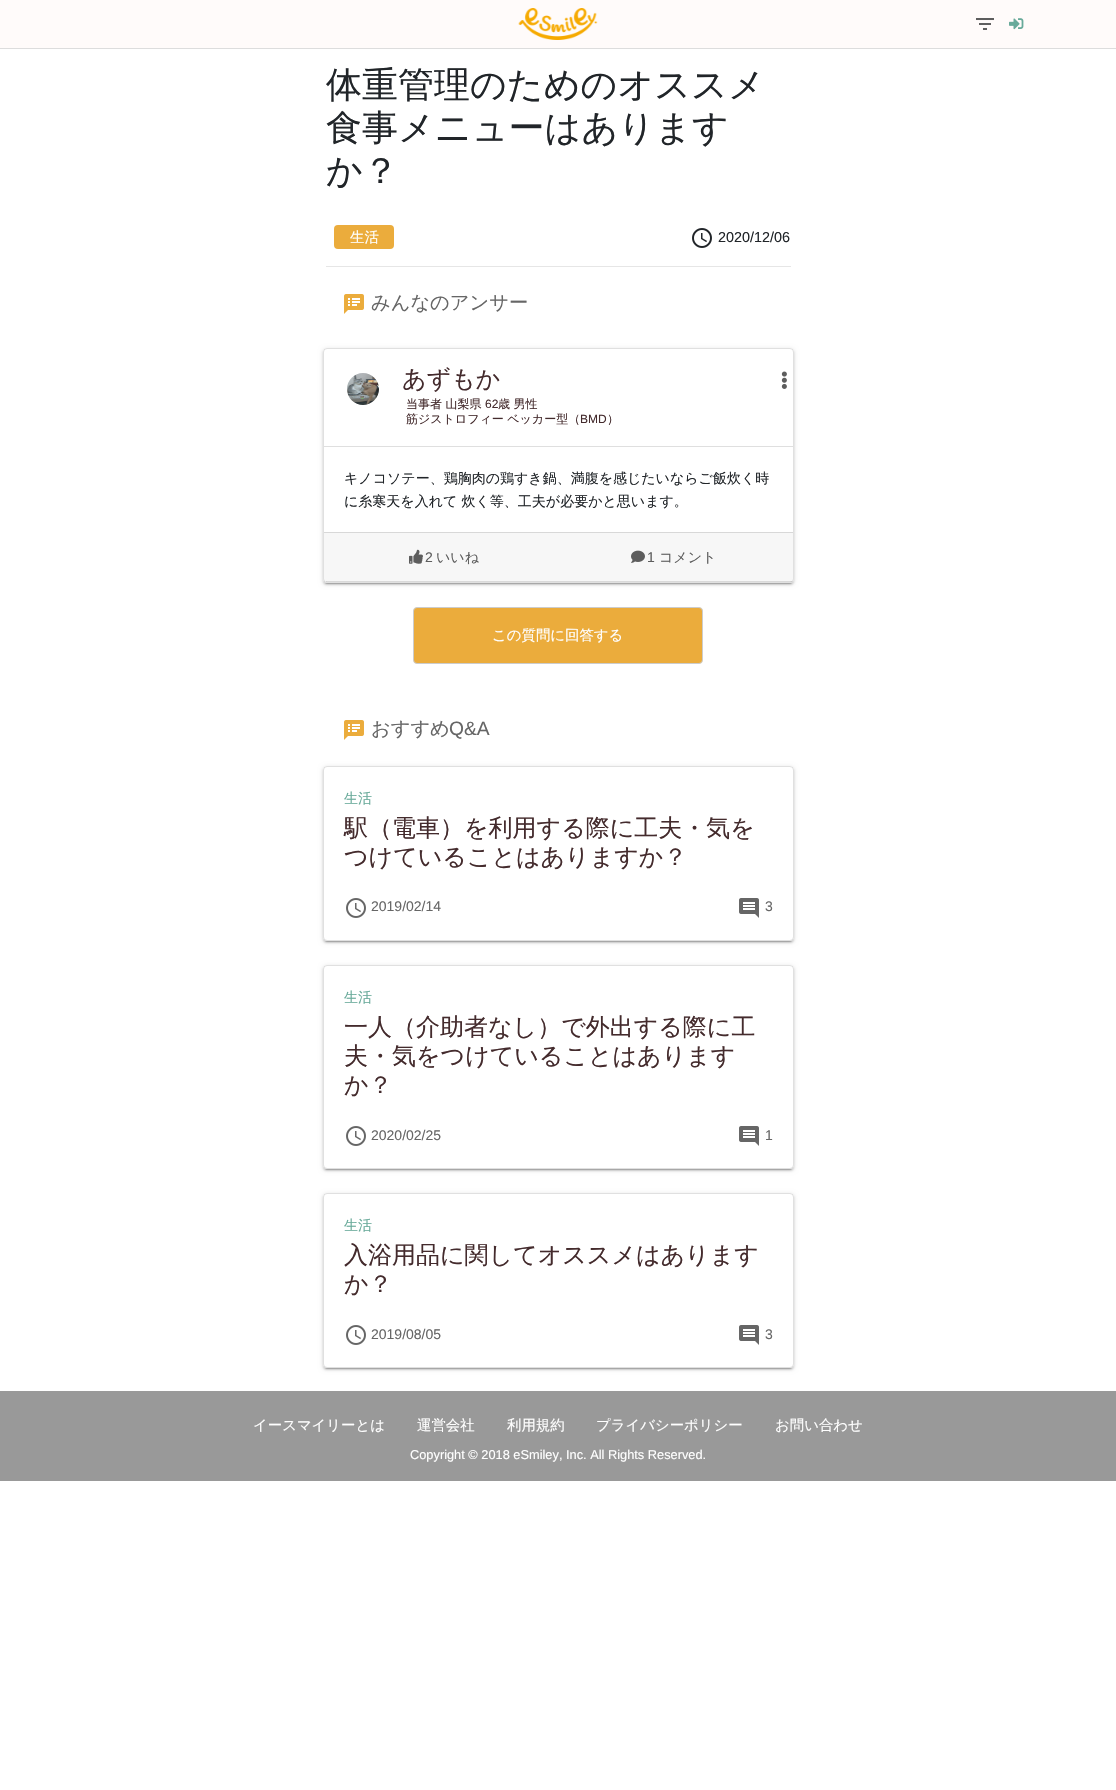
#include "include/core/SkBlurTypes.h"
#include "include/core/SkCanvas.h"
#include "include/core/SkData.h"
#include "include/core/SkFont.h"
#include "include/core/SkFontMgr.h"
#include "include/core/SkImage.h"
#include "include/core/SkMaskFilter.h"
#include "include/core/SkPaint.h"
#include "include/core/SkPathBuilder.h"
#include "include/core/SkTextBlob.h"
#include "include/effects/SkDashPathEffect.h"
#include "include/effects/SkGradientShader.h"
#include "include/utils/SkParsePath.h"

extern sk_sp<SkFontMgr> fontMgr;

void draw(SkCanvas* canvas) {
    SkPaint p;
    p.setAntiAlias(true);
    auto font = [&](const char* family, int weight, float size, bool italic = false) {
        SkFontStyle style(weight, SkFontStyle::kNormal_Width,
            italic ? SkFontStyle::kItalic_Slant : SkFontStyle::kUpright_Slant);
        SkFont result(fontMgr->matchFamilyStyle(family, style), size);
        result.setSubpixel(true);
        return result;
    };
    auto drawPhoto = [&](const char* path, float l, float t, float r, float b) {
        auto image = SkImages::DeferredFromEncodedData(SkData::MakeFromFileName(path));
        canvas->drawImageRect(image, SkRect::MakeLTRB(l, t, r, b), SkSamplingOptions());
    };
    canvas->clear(0xFFFFFFFF);
    p.setColor(0xFFFFFBFA);
    canvas->drawRect(SkRect::MakeLTRB(0, 0, 1116, 48), p);
    p.setColor(0xFFDDDDDD);
    canvas->drawRect(SkRect::MakeLTRB(0, 48, 1116, 49), p);
    drawPhoto("media/1.png", 518, 8, 598, 40);
    drawPhoto("media/2.png", 976, 18, 994, 30);
    drawPhoto("media/3.png", 1009, 18, 1024, 30);
    auto font1 = font("WenQuanYi Zen Hei", 500, 36);
    p.setColor(0xFF212529);
    {
        const struct { const char* s; float x, y; } items[] = {
            {"体重管理のためのオススメ", 326, 97},
            {"食事メニューはあります", 326, 140},
            {"か？", 326, 183},
        };
        for (auto [s, x, y] : items) {
            canvas->drawString(s, x, y, font1, p);
        }
    }
    p.setColor(0xFFEBAC3C);
    canvas->drawRoundRect(SkRect::MakeLTRB(334, 225, 394, 249), 4, 4, p);
    auto font2 = font("WenQuanYi Zen Hei", 500, 14.4f);
    p.setColor(0xFFFFFFFF);
    canvas->drawString("生活", 350, 242, font2, p);
    drawPhoto("media/4.png", 692, 228, 712, 248);
    auto font3 = font("Liberation Sans", 400, 14.4f);
    p.setColor(0xFF212529);
    canvas->drawString("2020/12/06", 718, 242, font3, p);
    p.setColor(0xFFE6E6E6);
    canvas->drawRect(SkRect::MakeLTRB(326, 266, 791, 267), p);
    drawPhoto("media/5.png", 344, 294, 364, 314);
    auto font4 = font("WenQuanYi Zen Hei", 500, 19.25f);
    p.setColor(0xFF666666);
    canvas->drawString("みんなのアンサー", 371, 309, font4, p);
    p.setColor(0x1F000000);
    p.setMaskFilter(SkMaskFilter::MakeBlur(kNormal_SkBlurStyle, 2.5f));
    canvas->drawRoundRect(SkRect::MakeLTRB(323, 349, 794, 584), 4, 4, p);
    p.setMaskFilter(nullptr);
    p.setColor(0x33000000);
    p.setMaskFilter(SkMaskFilter::MakeBlur(kNormal_SkBlurStyle, 0.5f));
    canvas->drawRoundRect(SkRect::MakeLTRB(325, 353, 792, 584), 2, 2, p);
    p.setMaskFilter(nullptr);
    p.setColor(0x24000000);
    p.setMaskFilter(SkMaskFilter::MakeBlur(kNormal_SkBlurStyle, 1));
    canvas->drawRoundRect(SkRect::MakeLTRB(323, 350, 794, 585), 4, 4, p);
    p.setMaskFilter(nullptr);
    p.setColor(0xFFFFFFFF);
    canvas->drawRoundRect(SkRect::MakeLTRB(323, 348, 794, 583), 4, 4, p);
    p.setStyle(SkPaint::kStroke_Style);
    p.setStrokeWidth(1);
    p.setColor(0x1F000000);
    canvas->drawRoundRect(SkRect::MakeLTRB(323.5f, 348.5f, 793.5f, 582.5f), 3.5f, 3.5f, p);
    p.setStyle(SkPaint::kFill_Style);
    p.setColor(0xFFDFDFDF);
    canvas->drawRect(SkRect::MakeLTRB(324, 446, 793, 447), p);
    drawPhoto("media/6.png", 347, 373, 379, 405);
    auto font5 = font("WenQuanYi Zen Hei", 500, 24);
    p.setColor(0xFF442B2D);
    canvas->drawString("あずもか", 402, 387, font5, p);
    auto font6 = font("WenQuanYi Zen Hei", 500, 12);
    canvas->drawString("当事者 山梨県", 406, 408, font6, p);
    auto font7 = font("Liberation Sans", 400, 12);
    canvas->drawString("62", 485, 408, font7, p);
    canvas->drawString("歳 男性", 498, 408, font6, p);
    canvas->drawString("筋ジストロフィー ベッカー型（", 406, 423, font6, p);
    canvas->drawString("BMD", 580, 423, font7, p);
    canvas->drawString("）", 607, 423, font6, p);
    drawPhoto("media/7.png", 781, 371, 787, 389);
    auto font8 = font("WenQuanYi Zen Hei", 500, 14);
    p.setColor(0xFF212529);
    canvas->drawString("キノコソテー、鶏胸肉の鶏すき鍋、満腹を感じたいならご飯炊く時", 344, 483, font8, p);
    canvas->drawString("に糸寒天を入れて 炊く等、工夫が必要かと思います。", 344, 506, font8, p);
    {
        const struct { float l, t, r, b; SkColor color; } items[] = {
            {324, 533, 793, 582, 0x08000000},
            {324, 532, 793, 533, 0xFFD8D8D8},
            {326, 581, 792, 582, 0x1F000000},
        };
        for (auto [l, t, r, b, color] : items) {
            p.setColor(color);
            canvas->drawRect(SkRect::MakeLTRB(l, t, r, b), p);
        }
    }
    drawPhoto("media/8.png", 409, 549, 423, 564);
    auto font9 = font("Liberation Sans", 400, 14);
    p.setColor(0xFF5D5D5D);
    canvas->drawString("2", 425, 562, font9, p);
    canvas->drawString("いいね", 436, 562, font8, p);
    drawPhoto("media/9.png", 631, 550, 645, 563);
    canvas->drawString("1", 647, 562, font9, p);
    canvas->drawString("コメント", 659, 562, font8, p);
    p.setColor(0xFFEBAC3C);
    canvas->drawRoundRect(SkRect::MakeLTRB(413.5f, 607.5f, 702.5f, 663.5f), 3.5f, 3.5f, p);
    p.setStyle(SkPaint::kStroke_Style);
    p.setColor(0xFFCCCCCC);
    canvas->drawRoundRect(SkRect::MakeLTRB(413.5f, 607.5f, 702.5f, 663.5f), 3.5f, 3.5f, p);
    p.setStyle(SkPaint::kFill_Style);
    p.setColor(0xFFFFFFFF);
    canvas->drawString("この質問に回答する", 492, 640, font2, p);
    drawPhoto("media/5.png", 344, 720, 364, 740);
    p.setColor(0xFF666666);
    canvas->drawString("おすすめ", 371, 735, font4, p);
    auto font10 = font("Liberation Sans", 400, 19.25f);
    canvas->drawString("Q&A", 449, 735, font10, p);
    p.setColor(0x1F000000);
    p.setMaskFilter(SkMaskFilter::MakeBlur(kNormal_SkBlurStyle, 2.5f));
    canvas->drawRoundRect(SkRect::MakeLTRB(323, 767, 794, 942), 4, 4, p);
    p.setMaskFilter(nullptr);
    p.setColor(0x33000000);
    p.setMaskFilter(SkMaskFilter::MakeBlur(kNormal_SkBlurStyle, 0.5f));
    canvas->drawRoundRect(SkRect::MakeLTRB(325, 771, 792, 942), 2, 2, p);
    p.setMaskFilter(nullptr);
    p.setColor(0x24000000);
    p.setMaskFilter(SkMaskFilter::MakeBlur(kNormal_SkBlurStyle, 1));
    canvas->drawRoundRect(SkRect::MakeLTRB(323, 768, 794, 943), 4, 4, p);
    p.setMaskFilter(nullptr);
    p.setColor(0xFFFFFFFF);
    canvas->drawRoundRect(SkRect::MakeLTRB(323, 766, 794, 941), 4, 4, p);
    p.setStyle(SkPaint::kStroke_Style);
    p.setColor(0x1F000000);
    canvas->drawRoundRect(SkRect::MakeLTRB(323.5f, 766.5f, 793.5f, 940.5f), 3.5f, 3.5f, p);
    p.setStyle(SkPaint::kFill_Style);
    p.setColor(0xFF68AA9A);
    canvas->drawString("生活", 344, 803, font8, p);
    p.setColor(0xFF442B2D);
    canvas->drawString("駅（電車）を利用する際に工夫・気を", 344, 836, font5, p);
    canvas->drawString("つけていることはありますか？", 344, 865, font5, p);
    drawPhoto("media/10.png", 346, 898, 366, 918);
    p.setColor(0xFF666666);
    canvas->drawString("2019/02/14", 371, 911, font9, p);
    drawPhoto("media/11.png", 739, 898, 759, 918);
    canvas->drawString("3", 765, 911, font9, p);
    p.setColor(0x1F000000);
    p.setMaskFilter(SkMaskFilter::MakeBlur(kNormal_SkBlurStyle, 2.5f));
    canvas->drawRoundRect(SkRect::MakeLTRB(323, 966, 794, 1170), 4, 4, p);
    p.setMaskFilter(nullptr);
    p.setColor(0x33000000);
    p.setMaskFilter(SkMaskFilter::MakeBlur(kNormal_SkBlurStyle, 0.5f));
    canvas->drawRoundRect(SkRect::MakeLTRB(325, 970, 792, 1170), 2, 2, p);
    p.setMaskFilter(nullptr);
    p.setColor(0x24000000);
    p.setMaskFilter(SkMaskFilter::MakeBlur(kNormal_SkBlurStyle, 1));
    canvas->drawRoundRect(SkRect::MakeLTRB(323, 967, 794, 1171), 4, 4, p);
    p.setMaskFilter(nullptr);
    p.setColor(0xFFFFFFFF);
    canvas->drawRoundRect(SkRect::MakeLTRB(323, 965, 794, 1169), 4, 4, p);
    p.setStyle(SkPaint::kStroke_Style);
    p.setColor(0x1F000000);
    canvas->drawRoundRect(SkRect::MakeLTRB(323.5f, 965.5f, 793.5f, 1168.5f), 3.5f, 3.5f, p);
    p.setStyle(SkPaint::kFill_Style);
    p.setColor(0xFF68AA9A);
    canvas->drawString("生活", 344, 1002, font8, p);
    p.setColor(0xFF442B2D);
    {
        const struct { const char* s; float x, y; } items[] = {
            {"一人（介助者なし）で外出する際に工", 344, 1035},
            {"夫・気をつけていることはあります", 344, 1064},
            {"か？", 344, 1093},
        };
        for (auto [s, x, y] : items) {
            canvas->drawString(s, x, y, font5, p);
        }
    }
    drawPhoto("media/10.png", 346, 1126, 366, 1146);
    p.setColor(0xFF666666);
    canvas->drawString("2020/02/25", 371, 1140, font9, p);
    drawPhoto("media/11.png", 739, 1126, 759, 1146);
    canvas->drawString("1", 765, 1140, font9, p);
    p.setColor(0x1F000000);
    p.setMaskFilter(SkMaskFilter::MakeBlur(kNormal_SkBlurStyle, 2.5f));
    canvas->drawRoundRect(SkRect::MakeLTRB(323, 1194, 794, 1369), 4, 4, p);
    p.setMaskFilter(nullptr);
    p.setColor(0x33000000);
    p.setMaskFilter(SkMaskFilter::MakeBlur(kNormal_SkBlurStyle, 0.5f));
    canvas->drawRoundRect(SkRect::MakeLTRB(325, 1198, 792, 1369), 2, 2, p);
    p.setMaskFilter(nullptr);
    p.setColor(0x24000000);
    p.setMaskFilter(SkMaskFilter::MakeBlur(kNormal_SkBlurStyle, 1));
    canvas->drawRoundRect(SkRect::MakeLTRB(323, 1195, 794, 1370), 4, 4, p);
    p.setMaskFilter(nullptr);
    p.setColor(0xFFFFFFFF);
    canvas->drawRoundRect(SkRect::MakeLTRB(323, 1193, 794, 1368), 4, 4, p);
    p.setStyle(SkPaint::kStroke_Style);
    p.setColor(0x1F000000);
    canvas->drawRoundRect(SkRect::MakeLTRB(323.5f, 1193.5f, 793.5f, 1367.5f), 3.5f, 3.5f, p);
    p.setStyle(SkPaint::kFill_Style);
    p.setColor(0xFF68AA9A);
    canvas->drawString("生活", 344, 1230, font8, p);
    p.setColor(0xFF442B2D);
    canvas->drawString("入浴用品に関してオススメはあります", 344, 1263, font5, p);
    canvas->drawString("か？", 344, 1292, font5, p);
    drawPhoto("media/10.png", 346, 1325, 366, 1345);
    p.setColor(0xFF666666);
    canvas->drawString("2019/08/05", 371, 1339, font9, p);
    drawPhoto("media/11.png", 739, 1325, 759, 1345);
    canvas->drawString("3", 765, 1339, font9, p);
    p.setColor(0xFF999999);
    canvas->drawRect(SkRect::MakeLTRB(0, 1391, 1116, 1481), p);
    p.setColor(0xFFFFFFFF);
    {
        const struct { const char* s; float x, y; } items[] = {
            {"イースマイリーとは", 253, 1430},
            {"運営会社", 417, 1430},
            {"利用規約", 507, 1430},
            {"プライバシーポリシー", 596, 1430},
            {"お問い合わせ", 775, 1430},
        };
        for (auto [s, x, y] : items) {
            canvas->drawString(s, x, y, font2, p);
        }
    }
    auto font11 = font("Liberation Sans", 400, 12.8f);
    canvas->drawString("Copyright © 2018 eSmiley, Inc. All Rights Reserved.", 410, 1459, font11, p);
}
